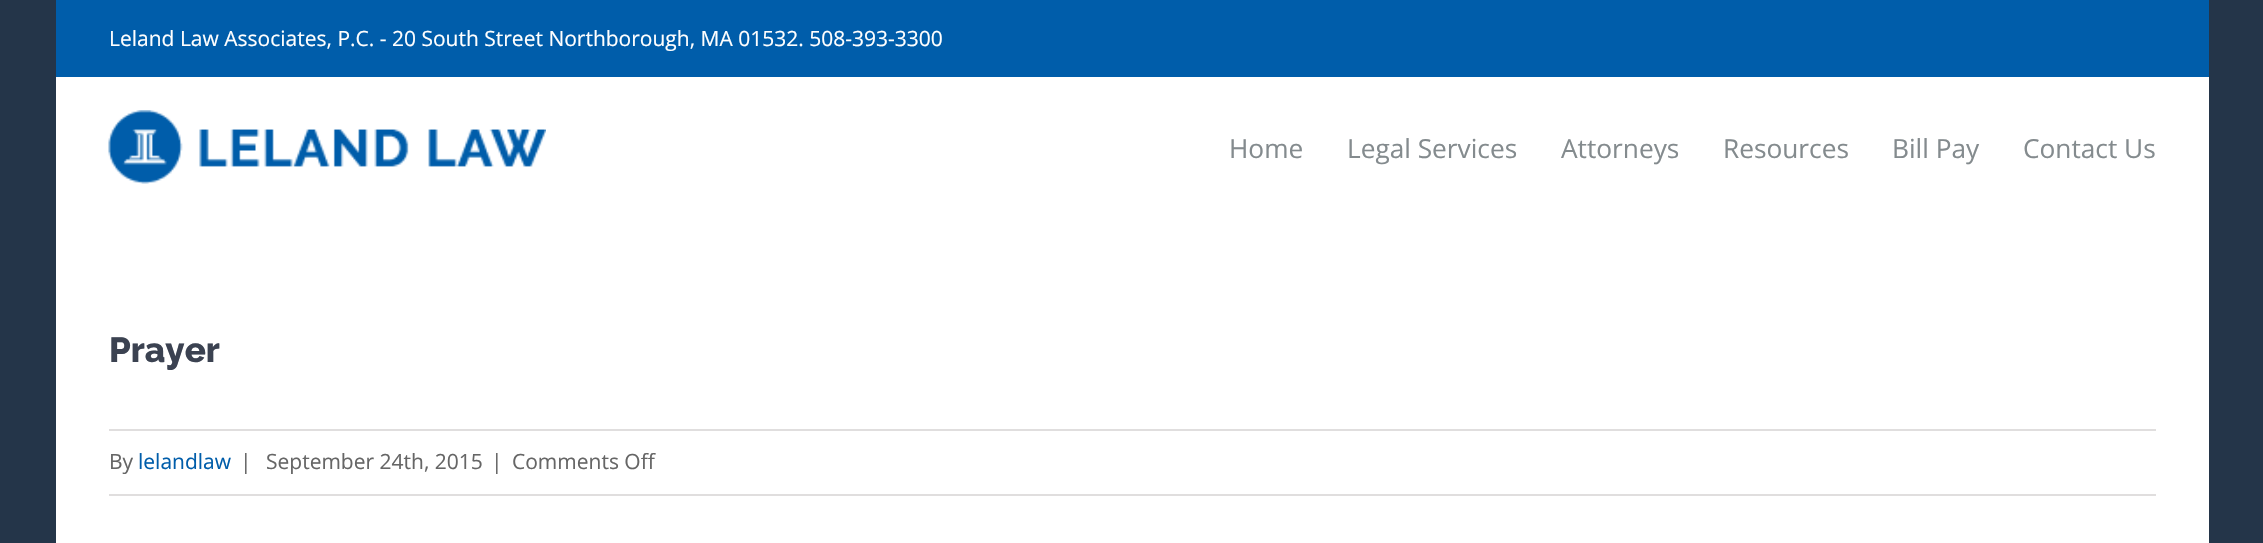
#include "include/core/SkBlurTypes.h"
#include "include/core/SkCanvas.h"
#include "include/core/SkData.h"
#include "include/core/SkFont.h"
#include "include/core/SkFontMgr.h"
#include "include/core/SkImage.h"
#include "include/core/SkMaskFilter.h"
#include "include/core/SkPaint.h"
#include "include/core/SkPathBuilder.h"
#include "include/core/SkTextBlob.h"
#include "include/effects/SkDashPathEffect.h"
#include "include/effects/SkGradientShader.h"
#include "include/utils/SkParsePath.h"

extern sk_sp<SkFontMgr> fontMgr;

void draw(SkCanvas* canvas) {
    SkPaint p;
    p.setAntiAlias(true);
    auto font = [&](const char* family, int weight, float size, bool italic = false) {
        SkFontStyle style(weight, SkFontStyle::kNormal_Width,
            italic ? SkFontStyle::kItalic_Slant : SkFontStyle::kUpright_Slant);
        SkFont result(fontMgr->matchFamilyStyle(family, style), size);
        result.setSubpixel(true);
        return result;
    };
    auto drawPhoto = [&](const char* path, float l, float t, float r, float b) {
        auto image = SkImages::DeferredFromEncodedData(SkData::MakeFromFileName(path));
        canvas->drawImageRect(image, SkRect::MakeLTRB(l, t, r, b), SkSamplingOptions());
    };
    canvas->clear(0xFF243549);
    p.setColor(0xFF005DAA);
    canvas->drawRect(SkRect::MakeLTRB(56, 0, 2209, 77), p);
    p.setColor(0xFFFFFFFF);
    canvas->drawRect(SkRect::MakeLTRB(56, 77, 2209, 217), p);
    auto font1 = font("Open Sans", 400, 21);
    canvas->drawString("Leland Law Associates, P.C. - 20 South Street Northborough, MA 01532. 508-393-3300", 109, 46, font1, p);
    drawPhoto("media/1.png", 108, 110, 546, 184);
    auto font2 = font("Open Sans", 400, 26.25f);
    p.setColor(0xFF848B8E);
    {
        const struct { const char* s; float x, y; } items[] = {
            {"Home", 1229, 158},
            {"Legal Services", 1347, 158},
            {"Attorneys", 1561, 158},
            {"Resources", 1723, 158},
            {"Bill Pay", 1892, 158},
            {"Contact Us", 2023, 158},
        };
        for (auto [s, x, y] : items) {
            canvas->drawString(s, x, y, font2, p);
        }
    }
    p.setColor(0xFFFFFFFF);
    canvas->drawRect(SkRect::MakeLTRB(56, 217, 2209, 543), p);
    auto font3 = font("Raleway", 100, 35);
    p.setColor(0xFF3B4251);
    canvas->drawString("Prayer", 109, 362, font3, p);
    p.setColor(0xFFE0DEDE);
    canvas->drawRect(SkRect::MakeLTRB(109, 429, 2156, 431), p);
    canvas->drawRect(SkRect::MakeLTRB(109, 494, 2156, 496), p);
    p.setColor(0xFF666666);
    canvas->drawString("By", 109, 469, font1, p);
    p.setColor(0xFF005DAA);
    canvas->drawString("lelandlaw", 138, 469, font1, p);
    p.setColor(0xFF666666);
    {
        const struct { const char* s; float x, y; } items[] = {
            {"|", 240, 469},
            {"September 24th, 2015", 266, 469},
            {"|", 491, 469},
            {"Comments Off", 512, 469},
        };
        for (auto [s, x, y] : items) {
            canvas->drawString(s, x, y, font1, p);
        }
    }
}
